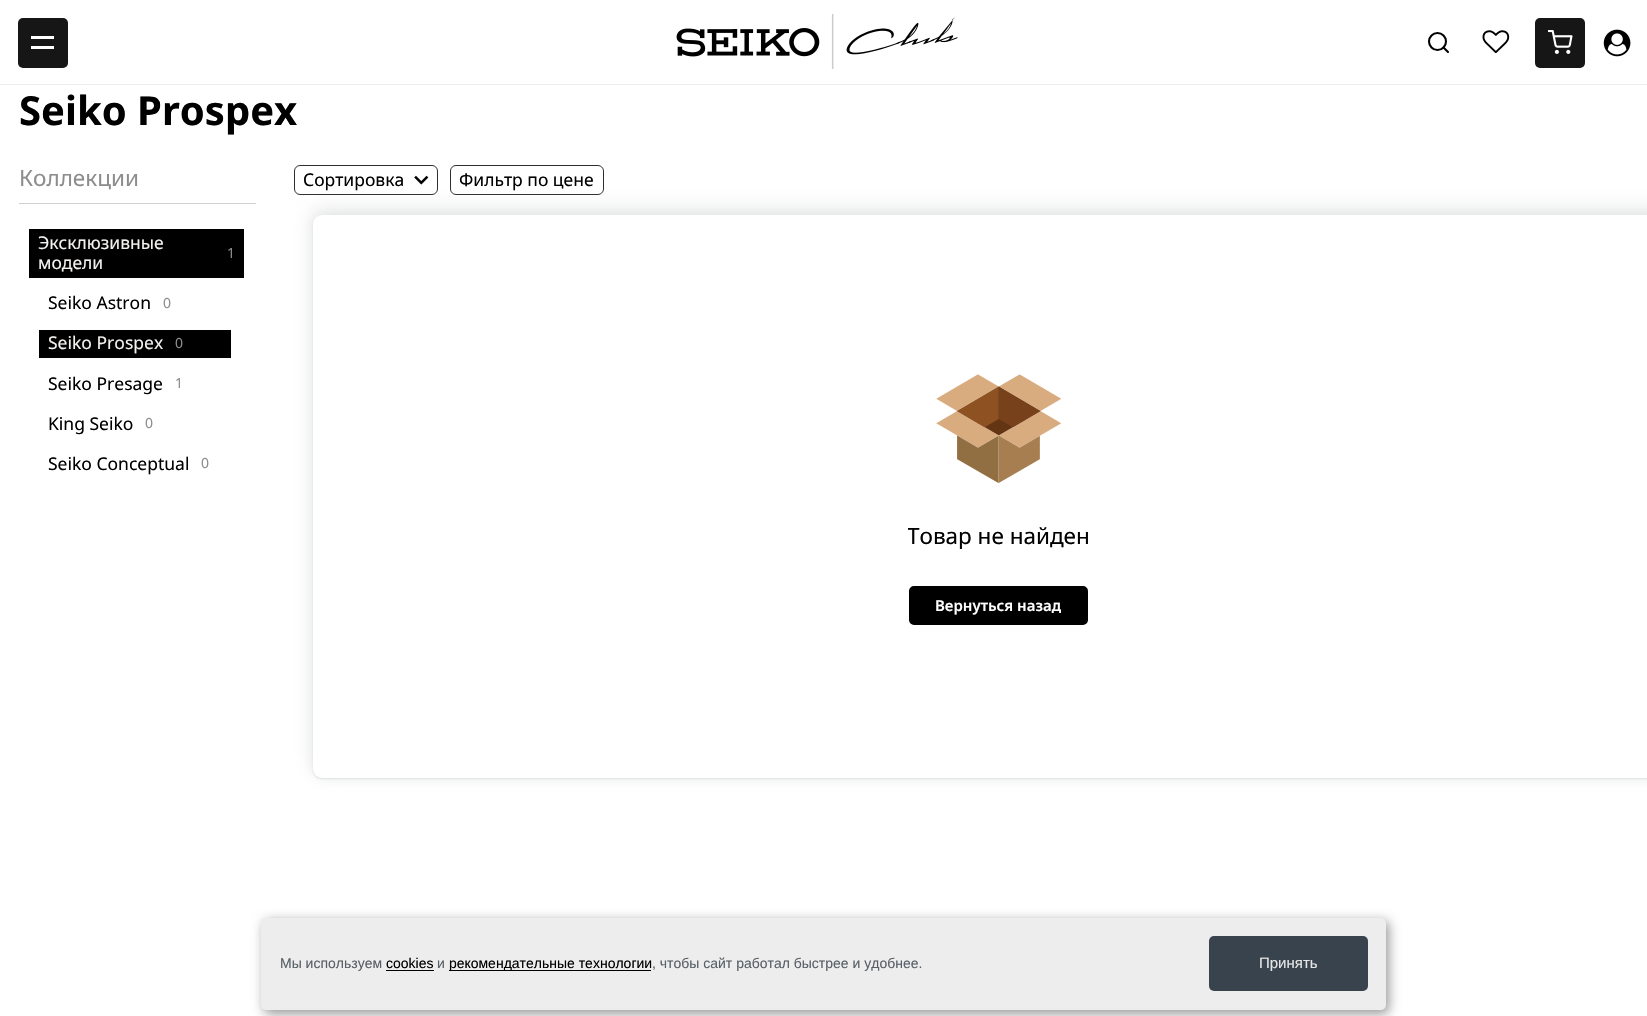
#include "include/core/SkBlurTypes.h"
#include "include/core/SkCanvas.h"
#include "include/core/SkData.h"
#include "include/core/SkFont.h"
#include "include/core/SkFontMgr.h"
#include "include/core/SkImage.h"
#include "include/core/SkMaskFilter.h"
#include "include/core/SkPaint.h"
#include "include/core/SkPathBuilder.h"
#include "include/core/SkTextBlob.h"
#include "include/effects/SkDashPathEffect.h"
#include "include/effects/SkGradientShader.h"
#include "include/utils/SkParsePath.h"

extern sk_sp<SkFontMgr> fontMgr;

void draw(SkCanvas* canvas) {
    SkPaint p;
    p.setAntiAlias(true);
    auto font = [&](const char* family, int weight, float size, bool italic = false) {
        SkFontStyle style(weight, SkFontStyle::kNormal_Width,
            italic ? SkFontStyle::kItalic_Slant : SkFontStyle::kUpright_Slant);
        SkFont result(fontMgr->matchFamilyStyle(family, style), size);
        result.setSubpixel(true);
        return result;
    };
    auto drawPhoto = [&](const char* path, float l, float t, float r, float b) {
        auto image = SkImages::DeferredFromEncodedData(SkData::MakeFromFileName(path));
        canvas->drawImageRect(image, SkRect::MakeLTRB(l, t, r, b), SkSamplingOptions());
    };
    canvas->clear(0xFFFFFFFF);
    p.setColor(0xFFEEEEEE);
    canvas->drawRect(SkRect::MakeLTRB(0, 84, 1647, 85), p);
    p.setColor(0xFF161616);
    canvas->drawRoundRect(SkRect::MakeLTRB(18, 18, 68, 68), 5, 5, p);
    p.setColor(0xFFFFFFFF);
    canvas->drawRect(SkRect::MakeLTRB(31, 36, 54, 39), p);
    canvas->drawRect(SkRect::MakeLTRB(31, 46, 54, 49), p);
    drawPhoto("media/1.png", 676, 14, 958, 69);
    p.setStyle(SkPaint::kStroke_Style);
    p.setStrokeWidth(2.1f);
    p.setColor(0xFF000000);
    canvas->drawCircle(1437.5f, 41.5f, 8.5f, p);
    p.setStrokeCap(SkPaint::kRound_Cap);
    p.setStrokeJoin(SkPaint::kRound_Join);
    canvas->drawPath(SkPathBuilder().moveTo(1448, 52).lineTo(1443.5f, 47.5f).detach(), p);
    drawPhoto("media/2.png", 1482, 30, 1510, 54);
    p.setStyle(SkPaint::kFill_Style);
    p.setColor(0xFF161616);
    canvas->drawRoundRect(SkRect::MakeLTRB(1535, 18, 1585, 68), 5, 5, p);
    drawPhoto("media/3.png", 1548, 30, 1573, 54);
    drawPhoto("media/4.png", 1603, 29, 1631, 57);
    auto font1 = font("Noto Sans", 700, 40);
    p.setColor(0xFF000000);
    canvas->drawString("Seiko Prospex", 19, 125, font1, p);
    p.setColor(0xFFD0D0D0);
    canvas->drawRect(SkRect::MakeLTRB(19, 203, 256, 204), p);
    auto font2 = font("Noto Sans", 400, 22.5f);
    p.setColor(0xFF8E8D8D);
    canvas->drawString("Коллекции", 19, 186, font2, p);
    p.setColor(0xFF000000);
    canvas->drawRect(SkRect::MakeLTRB(29, 229, 244, 278), p);
    auto font3 = font("Noto Sans", 400, 17.5f);
    p.setColor(0xFFF4F2F0);
    canvas->drawString("Эксклюзивные", 38, 249, font3, p);
    auto font4 = font("Noto Sans", 400, 14);
    p.setColor(0xFF8E8D8D);
    canvas->drawString("1", 227, 258, font4, p);
    p.setColor(0xFFF4F2F0);
    canvas->drawString("модели", 38, 269, font3, p);
    p.setColor(0xFF000000);
    canvas->drawString("Seiko Astron", 48, 309, font3, p);
    p.setColor(0xFF8E8D8D);
    canvas->drawString("0", 163, 308, font4, p);
    p.setColor(0xFF000000);
    canvas->drawRect(SkRect::MakeLTRB(39, 330, 231, 358), p);
    p.setColor(0xFFF4F2F0);
    canvas->drawString("Seiko Prospex", 48, 349, font3, p);
    p.setColor(0xFF8E8D8D);
    canvas->drawString("0", 175, 348, font4, p);
    p.setColor(0xFF000000);
    canvas->drawString("Seiko Presage", 48, 390, font3, p);
    p.setColor(0xFF8E8D8D);
    canvas->drawString("1", 175, 388, font4, p);
    p.setColor(0xFF000000);
    canvas->drawString("King Seiko", 48, 430, font3, p);
    p.setColor(0xFF8E8D8D);
    canvas->drawString("0", 145, 428, font4, p);
    p.setColor(0xFF000000);
    canvas->drawString("Seiko Conceptual", 48, 470, font3, p);
    p.setColor(0xFF8E8D8D);
    canvas->drawString("0", 201, 468, font4, p);
    p.setStyle(SkPaint::kStroke_Style);
    p.setStrokeWidth(1);
    p.setStrokeCap(SkPaint::kButt_Cap);
    p.setStrokeJoin(SkPaint::kMiter_Join);
    p.setColor(0xFF2E302F);
    canvas->drawRoundRect(SkRect::MakeLTRB(294.5f, 165.5f, 437.5f, 194.5f), 5.5f, 5.5f, p);
    p.setStyle(SkPaint::kFill_Style);
    p.setColor(0xFF000000);
    canvas->drawString("Сортировка", 303, 186, font3, p);
    drawPhoto("media/5.png", 414, 175, 429, 185);
    p.setStyle(SkPaint::kStroke_Style);
    p.setColor(0xFF2E302F);
    canvas->drawRoundRect(SkRect::MakeLTRB(450.5f, 165.5f, 603.5f, 194.5f), 5.5f, 5.5f, p);
    p.setStyle(SkPaint::kFill_Style);
    p.setColor(0xFF000000);
    canvas->drawString("Фильтр по цене", 459, 186, font3, p);
    p.setColor(0x40D3D6D7);
    p.setMaskFilter(SkMaskFilter::MakeBlur(kNormal_SkBlurStyle, 6));
    canvas->drawRoundRect(SkRect::MakeLTRB(313, 216, 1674, 779), 9, 9, p);
    p.setMaskFilter(nullptr);
    p.setColor(0x54B1B2B3);
    p.setMaskFilter(SkMaskFilter::MakeBlur(kNormal_SkBlurStyle, 10));
    canvas->drawRoundRect(SkRect::MakeLTRB(313, 209, 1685, 771), 9, 9, p);
    p.setMaskFilter(nullptr);
    p.setColor(0xA6D3D6D7);
    p.setMaskFilter(SkMaskFilter::MakeBlur(kNormal_SkBlurStyle, 1));
    canvas->drawRoundRect(SkRect::MakeLTRB(313, 216, 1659, 779), 9, 9, p);
    p.setMaskFilter(nullptr);
    p.setColor(0xFFFFFFFF);
    canvas->drawRoundRect(SkRect::MakeLTRB(313, 215, 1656, 778), 9, 9, p);
    drawPhoto("media/6.png", 936, 374, 1061, 484);
    canvas->save();
    canvas->clipRect(SkRect::MakeLTRB(908, 523, 1090, 549));
    p.setColor(0xFF000000);
    canvas->drawString("Товар не найден", 907, 544, font2, p);
    canvas->restore();
    canvas->drawRoundRect(SkRect::MakeLTRB(910.5f, 587.5f, 1086.5f, 623.5f), 3.5f, 3.5f, p);
    p.setStyle(SkPaint::kStroke_Style);
    p.setStrokeWidth(3);
    canvas->drawRoundRect(SkRect::MakeLTRB(910.5f, 587.5f, 1086.5f, 623.5f), 3.5f, 3.5f, p);
    auto font5 = font("Noto Sans", 600, 15);
    p.setStyle(SkPaint::kFill_Style);
    p.setColor(0xFFFFFFFF);
    canvas->drawString("Вернуться назад", 935, 611, font5, p);
    p.setColor(0x66000000);
    p.setMaskFilter(SkMaskFilter::MakeBlur(kNormal_SkBlurStyle, 6));
    canvas->drawRoundRect(SkRect::MakeLTRB(264, 921, 1389, 1014), 5, 5, p);
    p.setMaskFilter(nullptr);
    p.setColor(0xFFEDEDED);
    canvas->drawRoundRect(SkRect::MakeLTRB(261, 918, 1386, 1010), 5, 5, p);
    auto font6 = font("Liberation Sans", 400, 14);
    p.setColor(0xFF575F67);
    canvas->drawString("Мы используем", 280, 968, font6, p);
    p.setColor(0xFF000000);
    canvas->drawString("cookies", 386, 968, font6, p);
    canvas->drawRect(SkRect::MakeLTRB(386, 970, 434, 971), p);
    p.setColor(0xFF575F67);
    canvas->drawString("и", 437, 968, font6, p);
    p.setColor(0xFF000000);
    canvas->drawRect(SkRect::MakeLTRB(449, 970, 651, 971), p);
    canvas->drawString("рекомендательные технологии", 449, 968, font6, p);
    p.setColor(0xFF575F67);
    canvas->drawString(", чтобы сайт работал быстрее и удобнее.", 652, 968, font6, p);
    p.setColor(0xFF39434E);
    canvas->drawRoundRect(SkRect::MakeLTRB(1209, 936, 1368, 991), 5, 5, p);
    auto font7 = font("Liberation Sans", 400, 15);
    p.setColor(0xFFE5E5E5);
    canvas->drawString("Принять", 1259, 968, font7, p);
}
